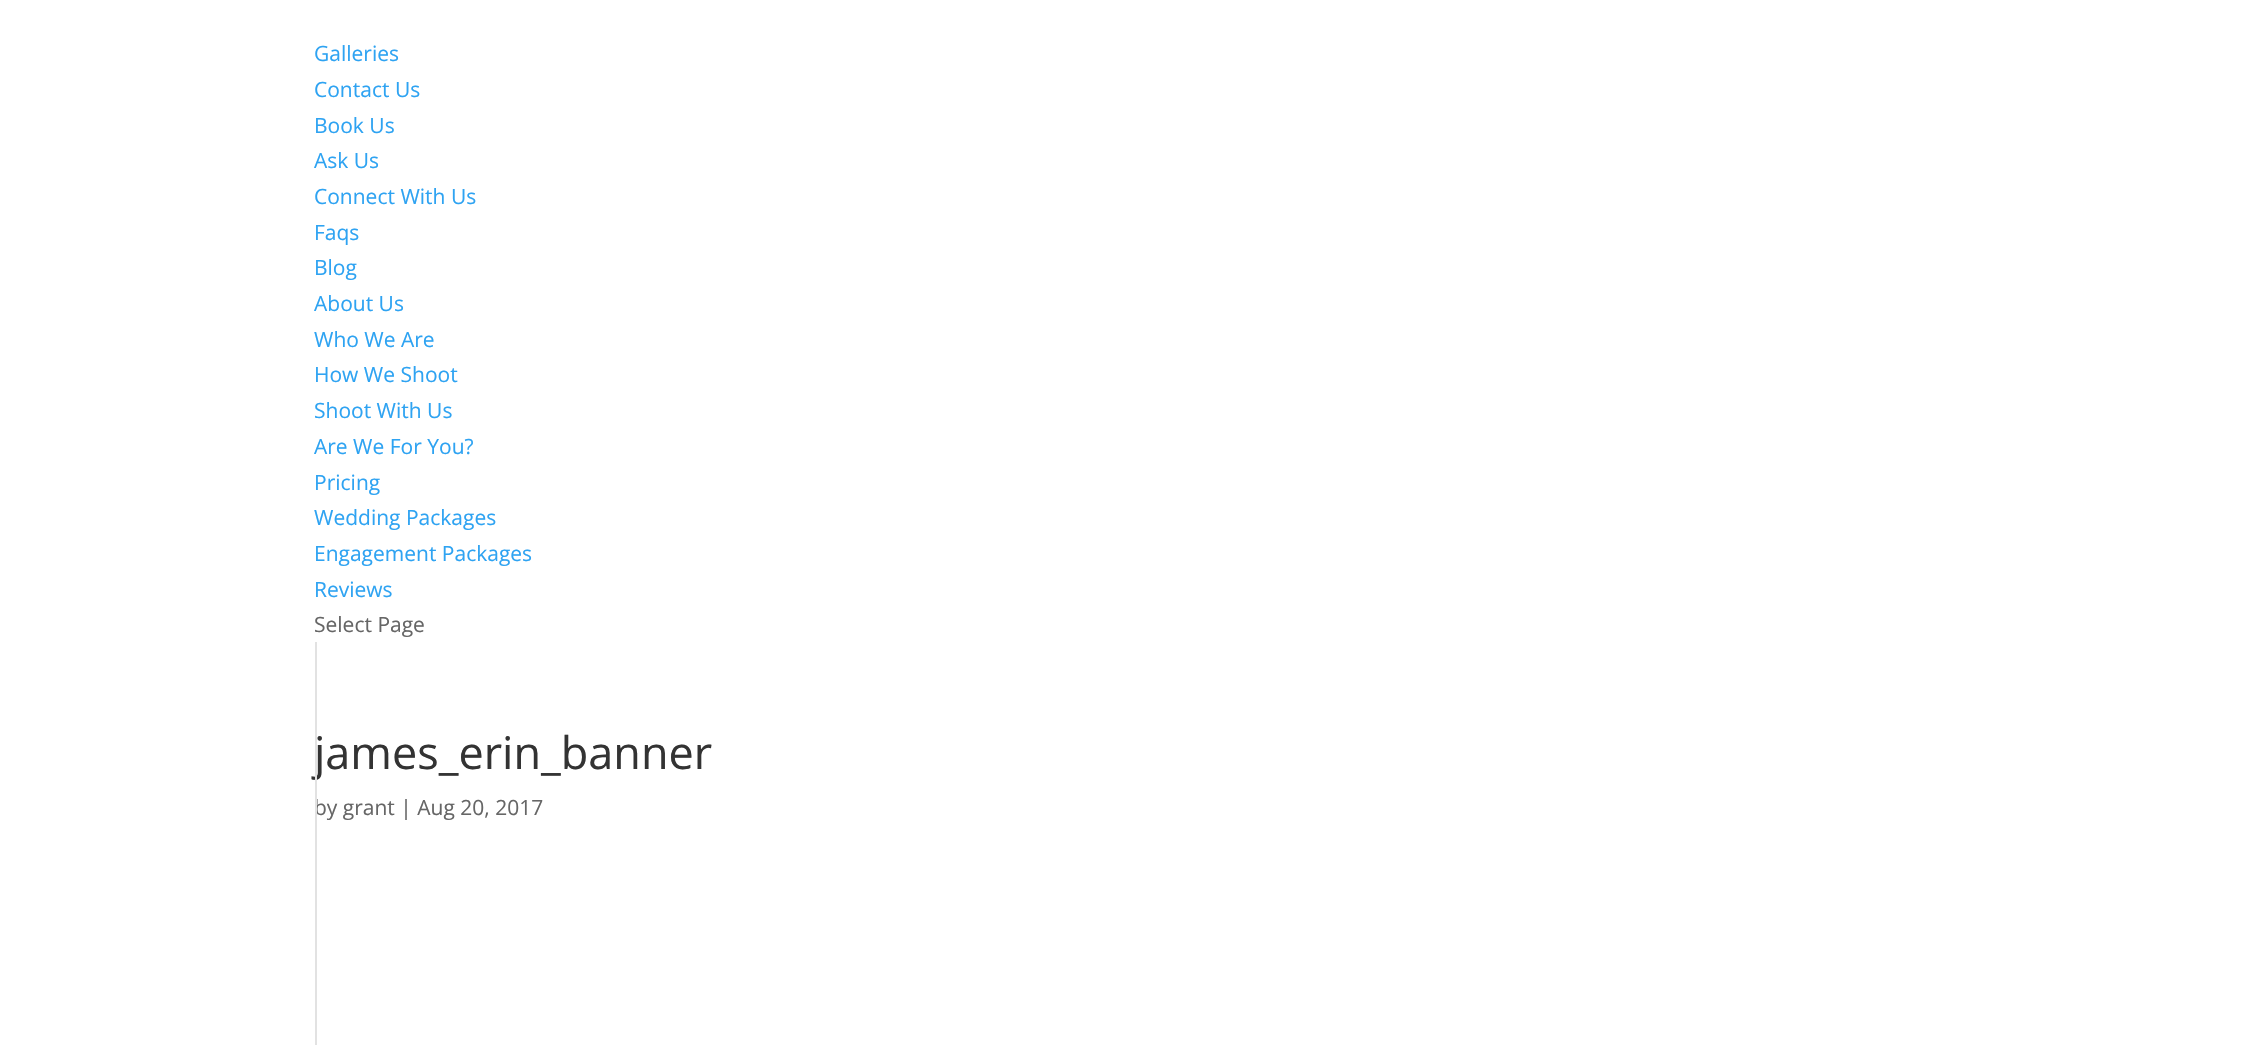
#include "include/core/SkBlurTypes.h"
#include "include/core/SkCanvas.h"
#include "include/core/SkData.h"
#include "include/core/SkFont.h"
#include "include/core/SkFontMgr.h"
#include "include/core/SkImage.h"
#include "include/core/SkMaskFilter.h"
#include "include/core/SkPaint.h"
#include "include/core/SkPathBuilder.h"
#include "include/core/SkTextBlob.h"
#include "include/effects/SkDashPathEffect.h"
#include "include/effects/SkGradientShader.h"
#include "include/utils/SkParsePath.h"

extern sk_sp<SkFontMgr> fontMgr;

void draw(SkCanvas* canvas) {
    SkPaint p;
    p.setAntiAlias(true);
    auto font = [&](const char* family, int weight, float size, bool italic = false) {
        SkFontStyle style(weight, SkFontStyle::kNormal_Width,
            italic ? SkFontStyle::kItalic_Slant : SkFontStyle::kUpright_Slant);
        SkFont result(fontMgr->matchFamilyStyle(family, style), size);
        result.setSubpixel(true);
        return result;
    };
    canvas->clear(0xFFFFFFFF);
    auto font1 = font("Open Sans", 400, 21);
    p.setColor(0xFF2EA3F2);
    {
        const struct { const char* s; float x, y; } items[] = {
            {"Galleries", 314, 61},
            {"Contact Us", 314, 97},
            {"Book Us", 314, 133},
            {"Ask Us", 314, 168},
            {"Connect With Us", 314, 204},
            {"Faqs", 314, 240},
            {"Blog", 314, 275},
            {"About Us", 314, 311},
            {"Who We Are", 314, 347},
            {"How We Shoot", 314, 382},
            {"Shoot With Us", 314, 418},
            {"Are We For You?", 314, 454},
            {"Pricing", 314, 490},
            {"Wedding Packages", 314, 525},
            {"Engagement Packages", 314, 561},
            {"Reviews", 314, 597},
        };
        for (auto [s, x, y] : items) {
            canvas->drawString(s, x, y, font1, p);
        }
    }
    p.setColor(0xFF666666);
    canvas->drawString("Select Page", 314, 632, font1, p);
    auto font2 = font("Open Sans", 400, 45);
    p.setColor(0xFF333333);
    canvas->drawString("james_erin_banner", 314, 769, font2, p);
    p.setColor(0xFF666666);
    canvas->drawString("by grant | Aug 20, 2017", 314, 815, font1, p);
    p.setColor(0xFFE2E2E2);
    canvas->drawRect(SkRect::MakeLTRB(315, 642, 317, 1045), p);
}
